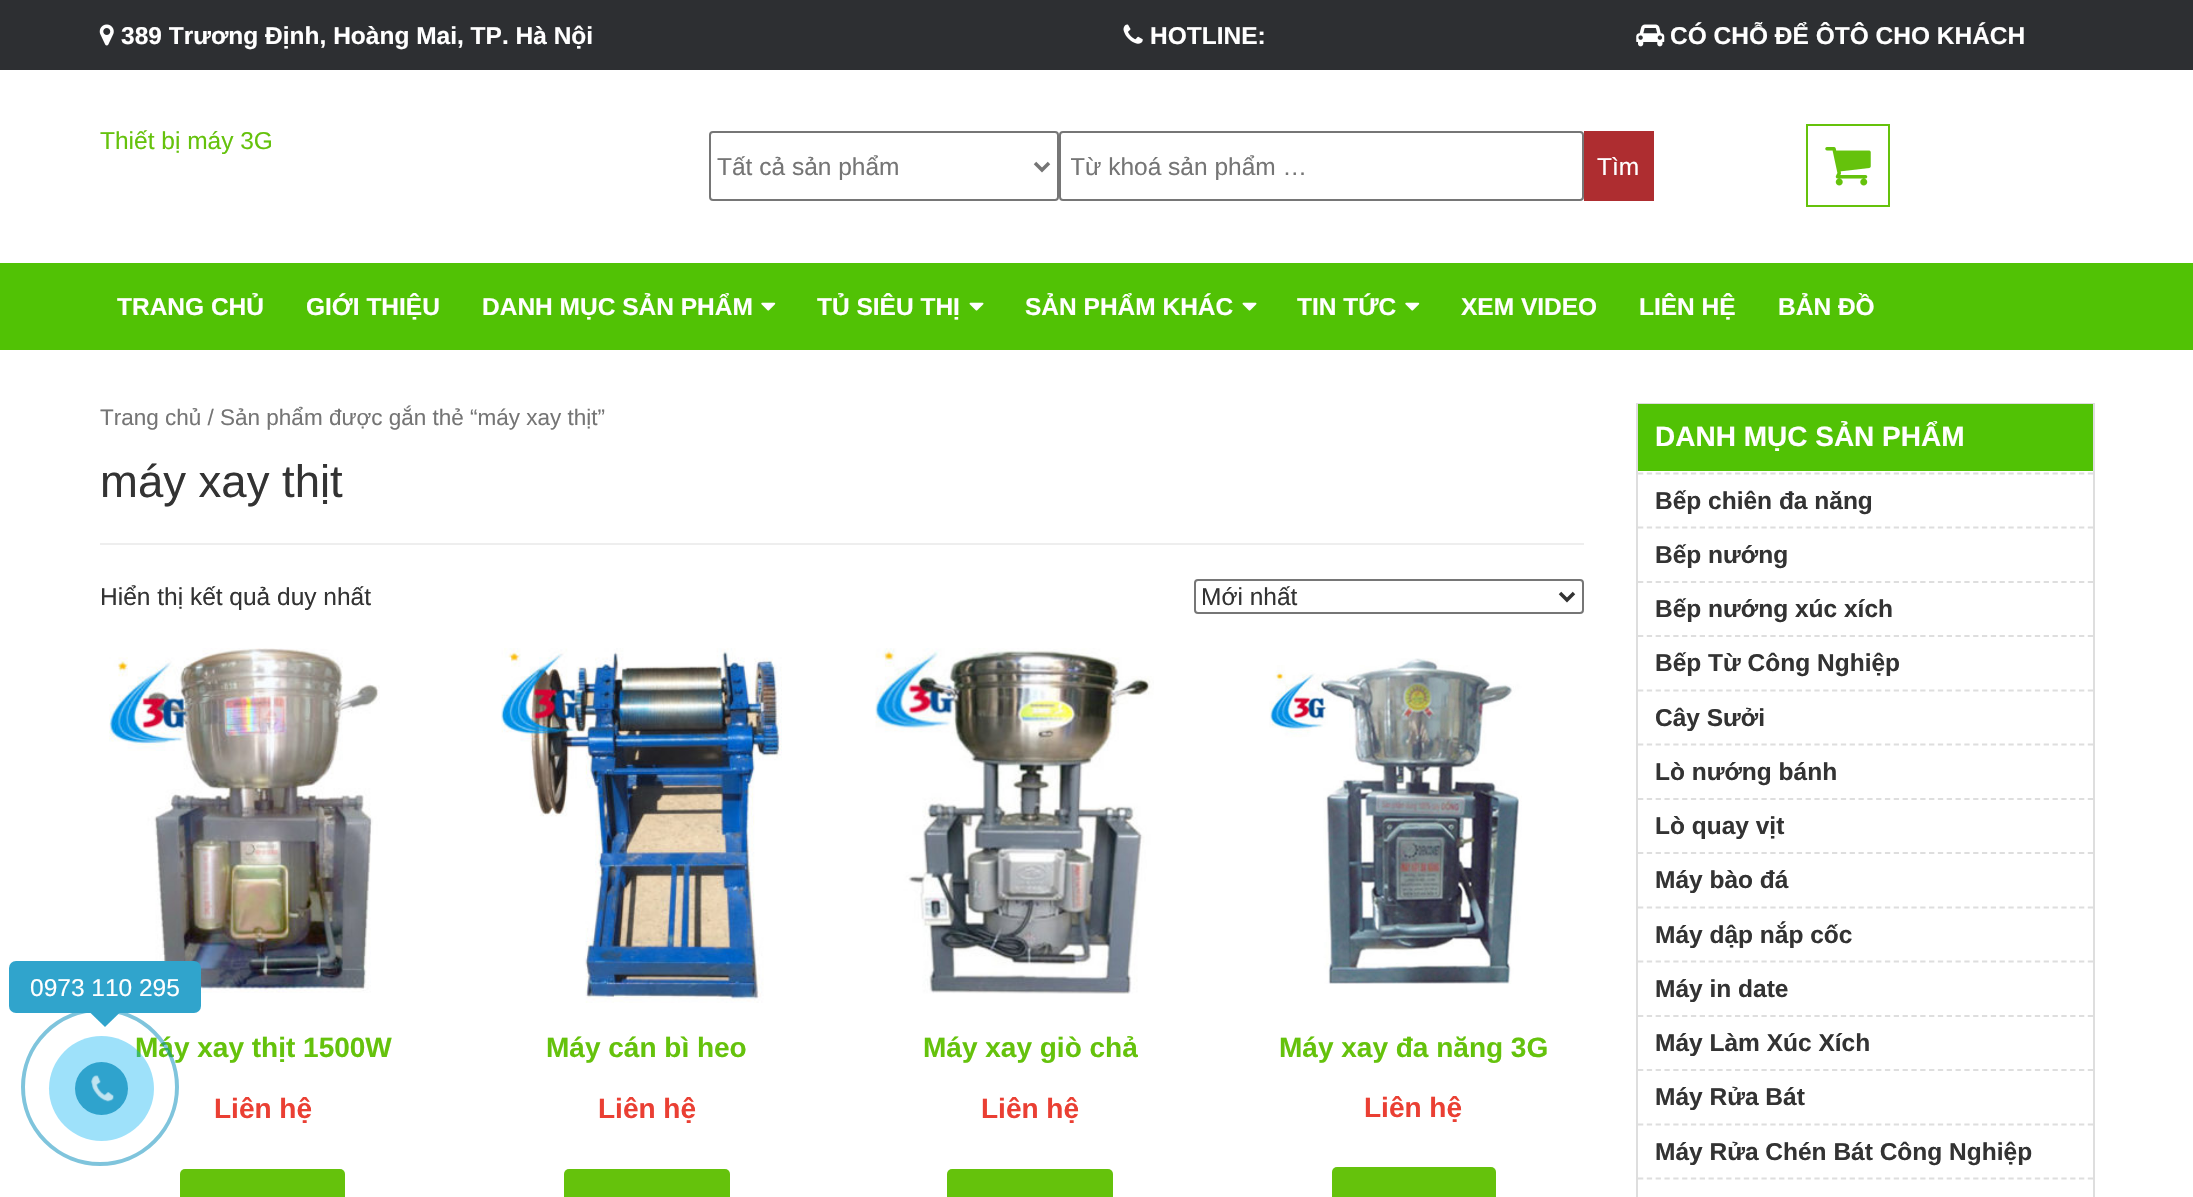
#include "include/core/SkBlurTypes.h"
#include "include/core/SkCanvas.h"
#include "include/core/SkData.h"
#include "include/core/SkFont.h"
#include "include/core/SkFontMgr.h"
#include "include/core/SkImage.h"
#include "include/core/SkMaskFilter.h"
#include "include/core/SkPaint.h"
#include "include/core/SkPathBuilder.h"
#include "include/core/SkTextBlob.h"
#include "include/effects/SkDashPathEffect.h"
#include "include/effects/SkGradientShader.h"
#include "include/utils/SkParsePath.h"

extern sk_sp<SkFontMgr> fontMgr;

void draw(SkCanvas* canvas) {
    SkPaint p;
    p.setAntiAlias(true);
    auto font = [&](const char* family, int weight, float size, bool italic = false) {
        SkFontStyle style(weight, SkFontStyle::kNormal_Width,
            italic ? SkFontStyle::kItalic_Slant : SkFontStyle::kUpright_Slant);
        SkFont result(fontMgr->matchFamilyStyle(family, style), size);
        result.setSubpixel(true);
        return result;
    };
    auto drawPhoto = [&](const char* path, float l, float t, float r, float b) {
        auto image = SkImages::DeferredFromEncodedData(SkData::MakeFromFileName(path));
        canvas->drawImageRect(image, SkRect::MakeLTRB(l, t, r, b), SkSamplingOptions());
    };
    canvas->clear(0xFFFFFFFF);
    p.setColor(0xFF2D2F32);
    canvas->drawRect(SkRect::MakeLTRB(0, 0, 2193, 70), p);
    drawPhoto("media/1.png", 99, 24, 114, 46);
    auto font1 = font("Liberation Sans", 700, 24.5f);
    p.setColor(0xFFFFFFFF);
    canvas->drawString("389 Trương Định, Hoàng Mai, TP. Hà Nội", 121, 44, font1, p);
    drawPhoto("media/2.png", 1123, 24, 1143, 44);
    canvas->drawString("HOTLINE:", 1150, 44, font1, p);
    drawPhoto("media/3.png", 1636, 24, 1665, 47);
    canvas->drawString("CÓ CHỖ ĐỂ ÔTÔ CHO KHÁCH", 1670, 44, font1, p);
    auto font2 = font("Liberation Sans", 400, 24.5f);
    p.setColor(0xFF65C20C);
    canvas->drawString("Thiết bị máy 3G", 100, 149, font2, p);
    p.setStyle(SkPaint::kStroke_Style);
    p.setStrokeWidth(2);
    canvas->drawRect(SkRect::MakeLTRB(1807, 125, 1889, 206), p);
    drawPhoto("media/4.png", 1825, 147, 1871, 186);
    p.setColor(0xFF767676);
    canvas->drawRoundRect(SkRect::MakeLTRB(710, 132, 1058, 200), 3, 3, p);
    p.setStrokeWidth(3.5f);
    p.setColor(0xFF757575);
    canvas->drawPath(SkPathBuilder().moveTo(1035, 163).lineTo(1042, 170).lineTo(1049, 163).detach(), p);
    p.setStyle(SkPaint::kFill_Style);
    canvas->drawString("Tất cả sản phẩm", 717, 175, font2, p);
    p.setStyle(SkPaint::kStroke_Style);
    p.setStrokeWidth(2);
    p.setColor(0xFF767676);
    canvas->drawRoundRect(SkRect::MakeLTRB(1060, 132, 1583, 200), 3, 3, p);
    canvas->save();
    canvas->clipRect(SkRect::MakeLTRB(1071, 152, 1572, 180));
    p.setStyle(SkPaint::kFill_Style);
    p.setColor(0xFF757575);
    canvas->drawString("Từ khoá sản phẩm …", 1070, 175, font2, p);
    canvas->restore();
    p.setColor(0xFFAE2D30);
    canvas->drawRect(SkRect::MakeLTRB(1584, 131, 1654, 201), p);
    p.setColor(0xFFFFFFFF);
    canvas->drawString("Tìm", 1597, 175, font2, p);
    p.setColor(0xFF51C205);
    canvas->drawRect(SkRect::MakeLTRB(0, 263, 2193, 350), p);
    p.setColor(0xFFFFFFFF);
    {
        const struct { const char* s; float x, y; } items[] = {
            {"TRANG CHỦ", 117, 315},
            {"GIỚI THIỆU", 306, 315},
            {"DANH MỤC SẢN PHẨM", 482, 315},
        };
        for (auto [s, x, y] : items) {
            canvas->drawString(s, x, y, font1, p);
        }
    }
    drawPhoto("media/5.png", 761, 302, 776, 311);
    canvas->drawString("TỦ SIÊU THỊ", 817, 315, font1, p);
    drawPhoto("media/6.png", 969, 302, 984, 311);
    canvas->drawString("SẢN PHẨM KHÁC", 1025, 315, font1, p);
    drawPhoto("media/6.png", 1242, 302, 1257, 311);
    canvas->drawString("TIN TỨC", 1297, 315, font1, p);
    drawPhoto("media/5.png", 1405, 302, 1420, 311);
    {
        const struct { const char* s; float x, y; } items[] = {
            {"XEM VIDEO", 1461, 315},
            {"LIÊN HỆ", 1639, 315},
            {"BẢN ĐỒ", 1778, 315},
        };
        for (auto [s, x, y] : items) {
            canvas->drawString(s, x, y, font1, p);
        }
    }
    auto font3 = font("Liberation Sans", 400, 22.5f);
    p.setColor(0xFF757575);
    canvas->drawString("Trang chủ / Sản phẩm được gắn thẻ “máy xay thịt”", 100, 425, font3, p);
    auto font4 = font("Liberation Sans", 400, 45.5f);
    p.setColor(0xFF333333);
    canvas->drawString("máy xay thịt", 100, 497, font4, p);
    p.setColor(0xFFEEEEEE);
    canvas->drawRect(SkRect::MakeLTRB(100, 543, 1584, 545), p);
    p.setColor(0xFF333333);
    canvas->drawString("Hiển thị kết quả duy nhất", 100, 605, font2, p);
    p.setStyle(SkPaint::kStroke_Style);
    p.setColor(0xFF767676);
    canvas->drawRoundRect(SkRect::MakeLTRB(1195, 580, 1583, 613), 3, 3, p);
    p.setStrokeWidth(3.5f);
    p.setColor(0xFF333333);
    canvas->drawPath(SkPathBuilder().moveTo(1560, 593).lineTo(1567, 600).lineTo(1574, 593).detach(), p);
    p.setStyle(SkPaint::kFill_Style);
    canvas->drawString("Mới nhất", 1201, 605, font2, p);
    drawPhoto("media/7.png", 109, 648, 380, 993);
    auto font5 = font("Liberation Sans", 700, 28);
    p.setColor(0xFF65C20C);
    canvas->drawString("Máy xay thịt 1500W", 135, 1057, font5, p);
    p.setColor(0xFFEA3F33);
    canvas->drawString("Liên hệ", 214, 1118, font5, p);
    p.setColor(0xFF65C20C);
    canvas->drawRoundRect(SkRect::MakeLTRB(180, 1169, 345, 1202), 5, 5, p);
    drawPhoto("media/8.png", 501, 648, 782, 1003);
    canvas->drawString("Máy cán bì heo", 546, 1057, font5, p);
    p.setColor(0xFFEA3F33);
    canvas->drawString("Liên hệ", 598, 1118, font5, p);
    p.setColor(0xFF65C20C);
    canvas->drawRoundRect(SkRect::MakeLTRB(564, 1169, 730, 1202), 5, 5, p);
    drawPhoto("media/9.png", 875, 648, 1154, 994);
    canvas->drawString("Máy xay giò chả", 923, 1057, font5, p);
    p.setColor(0xFFEA3F33);
    canvas->drawString("Liên hệ", 981, 1118, font5, p);
    p.setColor(0xFF65C20C);
    canvas->drawRoundRect(SkRect::MakeLTRB(947, 1169, 1113, 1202), 5, 5, p);
    drawPhoto("media/10.png", 1269, 658, 1522, 984);
    canvas->drawString("Máy xay đa năng 3G", 1279, 1057, font5, p);
    p.setColor(0xFFEA3F33);
    canvas->drawString("Liên hệ", 1364, 1117, font5, p);
    p.setColor(0xFF65C20C);
    canvas->drawRoundRect(SkRect::MakeLTRB(1332, 1167, 1496, 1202), 5, 5, p);
    p.setStyle(SkPaint::kStroke_Style);
    p.setStrokeWidth(2);
    p.setColor(0xFFDEDEDE);
    canvas->drawRect(SkRect::MakeLTRB(1637, 404, 2094, 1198), p);
    p.setStyle(SkPaint::kFill_Style);
    p.setColor(0xFF51C205);
    canvas->drawRect(SkRect::MakeLTRB(1638, 404, 2093, 471), p);
    p.setColor(0xFFFFFFFF);
    canvas->drawString("DANH MỤC SẢN PHẨM", 1655, 446, font5, p);
    p.setStyle(SkPaint::kStroke_Style);
    p.setStrokeWidth(1.8f);
    p.setColor(0xFFDEDEDE);
    p.setPathEffect(SkDashPathEffect::Make({{5.25f, 3.57f}}, 0));
    canvas->drawPath(SkPathBuilder().moveTo(1638, 473.5f).lineTo(2093, 473.5f).detach(), p);
    p.setPathEffect(nullptr);
    p.setStyle(SkPaint::kFill_Style);
    p.setColor(0xFF333333);
    canvas->drawString("Bếp chiên đa năng", 1655, 509, font1, p);
    p.setStyle(SkPaint::kStroke_Style);
    p.setColor(0xFFDEDEDE);
    p.setPathEffect(SkDashPathEffect::Make({{5.25f, 3.57f}}, 0));
    canvas->drawPath(SkPathBuilder().moveTo(1638, 527.5f).lineTo(2093, 527.5f).detach(), p);
    p.setPathEffect(nullptr);
    p.setStyle(SkPaint::kFill_Style);
    p.setColor(0xFF333333);
    canvas->drawString("Bếp nướng", 1655, 563, font1, p);
    p.setStyle(SkPaint::kStroke_Style);
    p.setColor(0xFFDEDEDE);
    p.setPathEffect(SkDashPathEffect::Make({{5.25f, 3.57f}}, 0));
    canvas->drawPath(SkPathBuilder().moveTo(1638, 582).lineTo(2093, 582).detach(), p);
    p.setPathEffect(nullptr);
    p.setStyle(SkPaint::kFill_Style);
    p.setColor(0xFF333333);
    canvas->drawString("Bếp nướng xúc xích", 1655, 617, font1, p);
    p.setStyle(SkPaint::kStroke_Style);
    p.setColor(0xFFDEDEDE);
    p.setPathEffect(SkDashPathEffect::Make({{5.25f, 3.57f}}, 0));
    canvas->drawPath(SkPathBuilder().moveTo(1638, 636).lineTo(2093, 636).detach(), p);
    p.setPathEffect(nullptr);
    p.setStyle(SkPaint::kFill_Style);
    p.setColor(0xFF333333);
    canvas->drawString("Bếp Từ Công Nghiệp", 1655, 671, font1, p);
    p.setStyle(SkPaint::kStroke_Style);
    p.setColor(0xFFDEDEDE);
    p.setPathEffect(SkDashPathEffect::Make({{5.25f, 3.57f}}, 0));
    canvas->drawPath(SkPathBuilder().moveTo(1638, 690.5f).lineTo(2093, 690.5f).detach(), p);
    p.setPathEffect(nullptr);
    p.setStyle(SkPaint::kFill_Style);
    p.setColor(0xFF333333);
    canvas->drawString("Cây Sưởi", 1655, 726, font1, p);
    p.setStyle(SkPaint::kStroke_Style);
    p.setColor(0xFFDEDEDE);
    p.setPathEffect(SkDashPathEffect::Make({{5.25f, 3.57f}}, 0));
    canvas->drawPath(SkPathBuilder().moveTo(1638, 744.5f).lineTo(2093, 744.5f).detach(), p);
    p.setPathEffect(nullptr);
    p.setStyle(SkPaint::kFill_Style);
    p.setColor(0xFF333333);
    canvas->drawString("Lò nướng bánh", 1655, 780, font1, p);
    p.setStyle(SkPaint::kStroke_Style);
    p.setColor(0xFFDEDEDE);
    p.setPathEffect(SkDashPathEffect::Make({{5.25f, 3.57f}}, 0));
    canvas->drawPath(SkPathBuilder().moveTo(1638, 799).lineTo(2093, 799).detach(), p);
    p.setPathEffect(nullptr);
    p.setStyle(SkPaint::kFill_Style);
    p.setColor(0xFF333333);
    canvas->drawString("Lò quay vịt", 1655, 834, font1, p);
    p.setStyle(SkPaint::kStroke_Style);
    p.setColor(0xFFDEDEDE);
    p.setPathEffect(SkDashPathEffect::Make({{5.25f, 3.57f}}, 0));
    canvas->drawPath(SkPathBuilder().moveTo(1638, 853).lineTo(2093, 853).detach(), p);
    p.setPathEffect(nullptr);
    p.setStyle(SkPaint::kFill_Style);
    p.setColor(0xFF333333);
    canvas->drawString("Máy bào đá", 1655, 888, font1, p);
    p.setStyle(SkPaint::kStroke_Style);
    p.setColor(0xFFDEDEDE);
    p.setPathEffect(SkDashPathEffect::Make({{5.25f, 3.57f}}, 0));
    canvas->drawPath(SkPathBuilder().moveTo(1638, 907.5f).lineTo(2093, 907.5f).detach(), p);
    p.setPathEffect(nullptr);
    p.setStyle(SkPaint::kFill_Style);
    p.setColor(0xFF333333);
    canvas->drawString("Máy dập nắp cốc", 1655, 943, font1, p);
    p.setStyle(SkPaint::kStroke_Style);
    p.setColor(0xFFDEDEDE);
    p.setPathEffect(SkDashPathEffect::Make({{5.25f, 3.57f}}, 0));
    canvas->drawPath(SkPathBuilder().moveTo(1638, 961.5f).lineTo(2093, 961.5f).detach(), p);
    p.setPathEffect(nullptr);
    p.setStyle(SkPaint::kFill_Style);
    p.setColor(0xFF333333);
    canvas->drawString("Máy in date", 1655, 997, font1, p);
    p.setStyle(SkPaint::kStroke_Style);
    p.setColor(0xFFDEDEDE);
    p.setPathEffect(SkDashPathEffect::Make({{5.25f, 3.57f}}, 0));
    canvas->drawPath(SkPathBuilder().moveTo(1638, 1016).lineTo(2093, 1016).detach(), p);
    p.setPathEffect(nullptr);
    p.setStyle(SkPaint::kFill_Style);
    p.setColor(0xFF333333);
    canvas->drawString("Máy Làm Xúc Xích", 1655, 1051, font1, p);
    p.setStyle(SkPaint::kStroke_Style);
    p.setColor(0xFFDEDEDE);
    p.setPathEffect(SkDashPathEffect::Make({{5.25f, 3.57f}}, 0));
    canvas->drawPath(SkPathBuilder().moveTo(1638, 1070).lineTo(2093, 1070).detach(), p);
    p.setPathEffect(nullptr);
    p.setStyle(SkPaint::kFill_Style);
    p.setColor(0xFF333333);
    canvas->drawString("Máy Rửa Bát", 1655, 1105, font1, p);
    p.setStyle(SkPaint::kStroke_Style);
    p.setColor(0xFFDEDEDE);
    p.setPathEffect(SkDashPathEffect::Make({{5.25f, 3.57f}}, 0));
    canvas->drawPath(SkPathBuilder().moveTo(1638, 1124.5f).lineTo(2093, 1124.5f).detach(), p);
    p.setPathEffect(nullptr);
    p.setStyle(SkPaint::kFill_Style);
    p.setColor(0xFF333333);
    canvas->drawString("Máy Rửa Chén Bát Công Nghiệp", 1655, 1160, font1, p);
    p.setStyle(SkPaint::kStroke_Style);
    p.setColor(0xFFDEDEDE);
    p.setPathEffect(SkDashPathEffect::Make({{5.25f, 3.57f}}, 0));
    canvas->drawPath(SkPathBuilder().moveTo(1638, 1178.5f).lineTo(2093, 1178.5f).detach(), p);
    p.setPathEffect(nullptr);
    p.setStrokeWidth(4);
    p.setColor(0x800089B9);
    canvas->drawCircle(100, 1087, 77, p);
    p.setStyle(SkPaint::kFill_Style);
    p.setColor(0xFF30A4CC);
    canvas->drawRoundRect(SkRect::MakeLTRB(9, 961, 201, 1013), 7, 7, p);
    p.setColor(0xFFFFFFFF);
    canvas->drawString("0973 110 295", 30, 996, font2, p);
    p.setColor(0xFF30A4CC);
    canvas->drawPath(SkPathBuilder().moveTo(87.5f, 1010).lineTo(122.5f, 1010).lineTo(105, 1027).close().detach(), p);
    p.setColor(0x6100AFF2);
    canvas->drawCircle(101.5f, 1088.5f, 52.5f, p);
    p.setColor(0xFF2FA3CD);
    canvas->drawCircle(101.5f, 1088.5f, 26.5f, p);
    drawPhoto("media/11.png", 91, 1075, 114, 1102);
}
